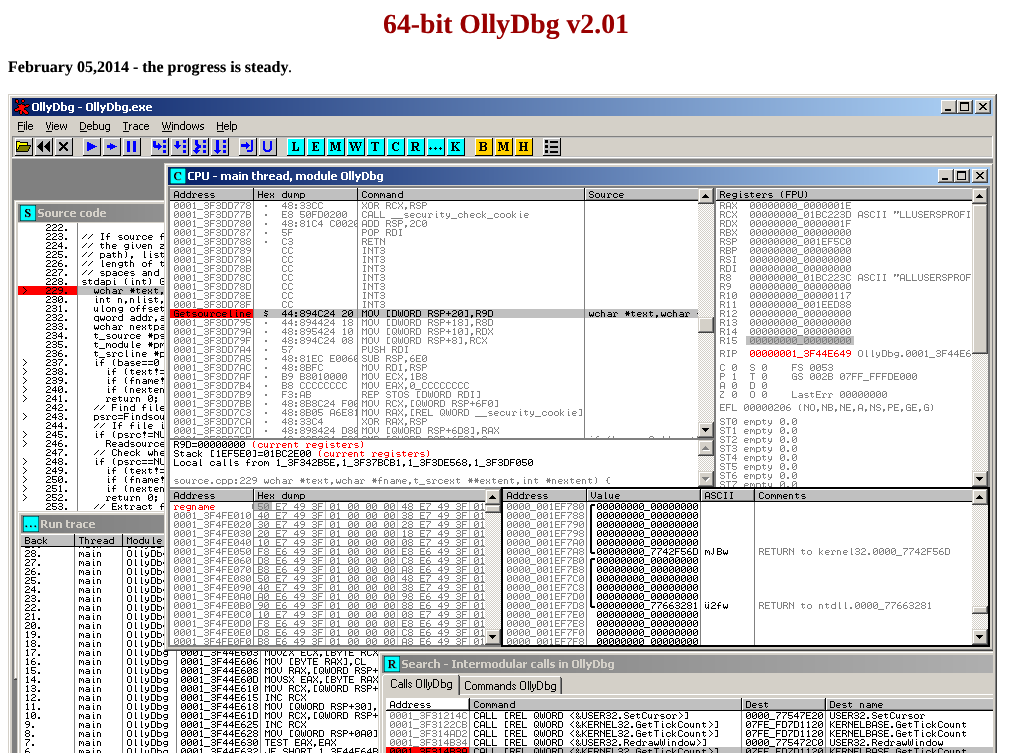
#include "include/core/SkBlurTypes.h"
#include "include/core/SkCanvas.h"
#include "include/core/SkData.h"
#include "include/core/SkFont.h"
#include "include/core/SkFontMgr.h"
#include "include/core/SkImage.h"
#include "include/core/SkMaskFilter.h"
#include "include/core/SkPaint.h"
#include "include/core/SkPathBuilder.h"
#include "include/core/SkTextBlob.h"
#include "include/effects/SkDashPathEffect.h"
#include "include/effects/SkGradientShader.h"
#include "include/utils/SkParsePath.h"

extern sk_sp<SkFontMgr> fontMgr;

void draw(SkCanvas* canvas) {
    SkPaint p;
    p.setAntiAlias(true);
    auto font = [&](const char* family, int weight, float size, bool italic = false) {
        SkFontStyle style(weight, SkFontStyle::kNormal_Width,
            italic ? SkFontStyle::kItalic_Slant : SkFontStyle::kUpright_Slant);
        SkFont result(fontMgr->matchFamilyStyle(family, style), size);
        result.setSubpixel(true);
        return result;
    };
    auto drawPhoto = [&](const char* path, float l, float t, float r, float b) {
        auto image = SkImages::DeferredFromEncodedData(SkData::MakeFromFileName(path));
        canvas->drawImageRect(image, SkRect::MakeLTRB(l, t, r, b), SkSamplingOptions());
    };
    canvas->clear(0xFFFFFFFF);
    auto font1 = font("Liberation Serif", 700, 27.75f);
    p.setColor(0xFF990000);
    canvas->drawString("64-bit OllyDbg v2.01", 383, 33, font1, p);
    auto font2 = font("Liberation Serif", 700, 16);
    p.setColor(0xFF000000);
    canvas->drawString("February 05,2014 - the progress is steady", 8, 72, font2, p);
    auto font3 = font("Liberation Serif", 400, 16);
    canvas->drawString(".", 288, 72, font3, p);
    drawPhoto("media/1.png", 8, 94, 997, 753);
}
